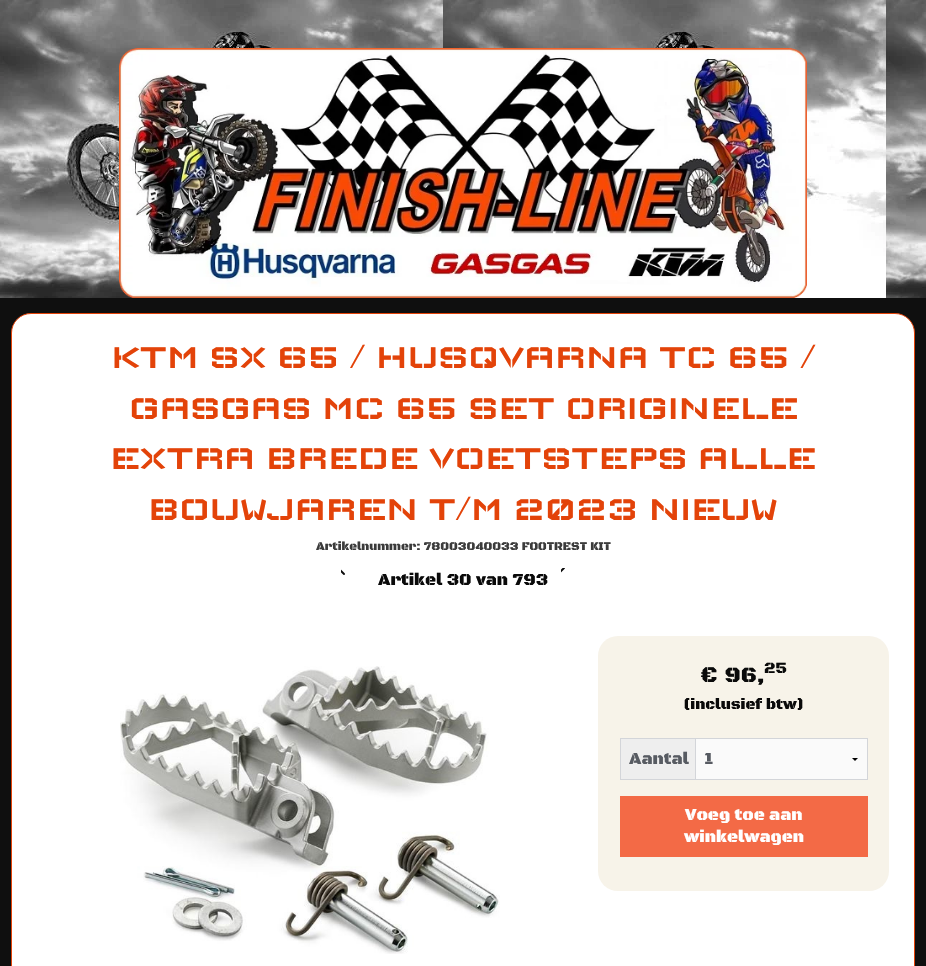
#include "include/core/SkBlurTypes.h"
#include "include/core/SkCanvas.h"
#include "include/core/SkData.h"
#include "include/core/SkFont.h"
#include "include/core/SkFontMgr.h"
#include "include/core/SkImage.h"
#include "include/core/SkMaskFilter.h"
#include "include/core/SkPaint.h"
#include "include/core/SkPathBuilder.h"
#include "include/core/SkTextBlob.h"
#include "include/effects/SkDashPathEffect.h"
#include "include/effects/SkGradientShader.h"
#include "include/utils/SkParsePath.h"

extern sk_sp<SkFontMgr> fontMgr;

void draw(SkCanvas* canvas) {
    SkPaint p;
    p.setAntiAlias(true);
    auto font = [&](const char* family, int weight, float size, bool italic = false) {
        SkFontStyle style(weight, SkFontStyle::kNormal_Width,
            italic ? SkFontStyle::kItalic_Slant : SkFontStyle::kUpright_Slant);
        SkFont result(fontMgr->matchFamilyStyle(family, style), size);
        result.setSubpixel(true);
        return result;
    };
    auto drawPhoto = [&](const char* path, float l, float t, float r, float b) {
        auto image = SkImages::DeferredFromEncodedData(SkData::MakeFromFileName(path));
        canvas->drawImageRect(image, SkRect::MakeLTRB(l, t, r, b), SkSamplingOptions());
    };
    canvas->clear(0xFFFFFFFF);
    drawPhoto("media/1.png", 0, 0, 926, 298);
    drawPhoto("media/2.png", 119, 48, 807, 298);
    p.setColor(0xFF0F0F0F);
    canvas->drawRect(SkRect::MakeLTRB(0, 298, 926, 966), p);
    p.setColor(0xFFFFFFFF);
    canvas->drawRoundRect(SkRect::MakeLTRB(11.5f, 313.5f, 914.5f, 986.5f), 19.5f, 19.5f, p);
    p.setStyle(SkPaint::kStroke_Style);
    p.setStrokeWidth(1);
    p.setColor(0xFFE34309);
    canvas->drawRoundRect(SkRect::MakeLTRB(11.5f, 313.5f, 914.5f, 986.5f), 19.5f, 19.5f, p);
    auto font1 = font("Wallpoet", 400, 36);
    p.setStyle(SkPaint::kFill_Style);
    {
        const struct { const char* s; float x, y; } items[] = {
            {"KTM SX 65 / HUSQVARNA TC 65 /", 111, 368},
            {"GASGAS MC 65 SET ORIGINELE", 129, 419},
            {"EXTRA BREDE VOETSTEPS ALLE", 110, 469},
            {"BOUWJAREN T/M 2023 NIEUW", 148, 520},
        };
        for (auto [s, x, y] : items) {
            canvas->drawString(s, x, y, font1, p);
        }
    }
    auto font2 = font("Black Ops One", 900, 12);
    p.setColor(0xFF3B3B3B);
    canvas->drawString("Artikelnummer: 78003040033 FOOTREST KIT", 316, 550, font2, p);
    drawPhoto("media/3.png", 341, 569, 345, 575);
    auto font3 = font("Black Ops One", 900, 17);
    p.setColor(0xFF0A0A0A);
    canvas->drawString("Artikel 30 van 793", 378, 585, font3, p);
    drawPhoto("media/4.png", 561, 568, 565, 573);
    drawPhoto("media/5.png", 120, 666, 500, 954);
    p.setColor(0xFFF7F3E9);
    canvas->drawRoundRect(SkRect::MakeLTRB(598, 636, 889, 891), 20, 20, p);
    auto font4 = font("Black Ops One", 900, 22);
    p.setColor(0xFF0A0A0A);
    canvas->drawString("€ 96,", 699, 682, font4, p);
    auto font5 = font("Black Ops One", 900, 16);
    canvas->drawString("25", 764, 673, font5, p);
    auto font6 = font("Black Ops One", 900, 15.25f);
    canvas->drawString("(inclusief btw)", 683, 709, font6, p);
    {
        const struct { float l, t, r, b; SkColor color; } items[] = {
            {620, 738, 868, 739, 0xFFD3D5D9},
            {867, 738, 868, 780, 0xFFD3D5D9},
            {695, 739, 696, 780, 0xFFD3D5D9},
            {620, 779, 868, 780, 0xFFD3D5D9},
            {620, 738, 621, 780, 0xFFD3D5D9},
            {621, 739, 695, 779, 0xFFEEEEEE},
        };
        for (auto [l, t, r, b, color] : items) {
            p.setColor(color);
            canvas->drawRect(SkRect::MakeLTRB(l, t, r, b), p);
        }
    }
    p.setColor(0xFF575B62);
    canvas->drawString("Aantal", 629, 764, font3, p);
    p.setColor(0xFFFAFAFA);
    canvas->drawRect(SkRect::MakeLTRB(696, 739, 867, 779), p);
    p.setColor(0xFF000000);
    canvas->drawPath(SkPathBuilder().moveTo(858, 758).lineTo(855, 761).lineTo(852, 758).close().detach(), p);
    p.setColor(0xFF575B62);
    canvas->drawString("1", 704, 764, font3, p);
    p.setColor(0xFFF36A46);
    canvas->drawRect(SkRect::MakeLTRB(620, 796, 868, 857), p);
    p.setColor(0xFFFFFFFF);
    canvas->drawString("Voeg toe aan", 685, 820, font3, p);
    canvas->drawString("winkelwagen", 684, 842, font3, p);
}
